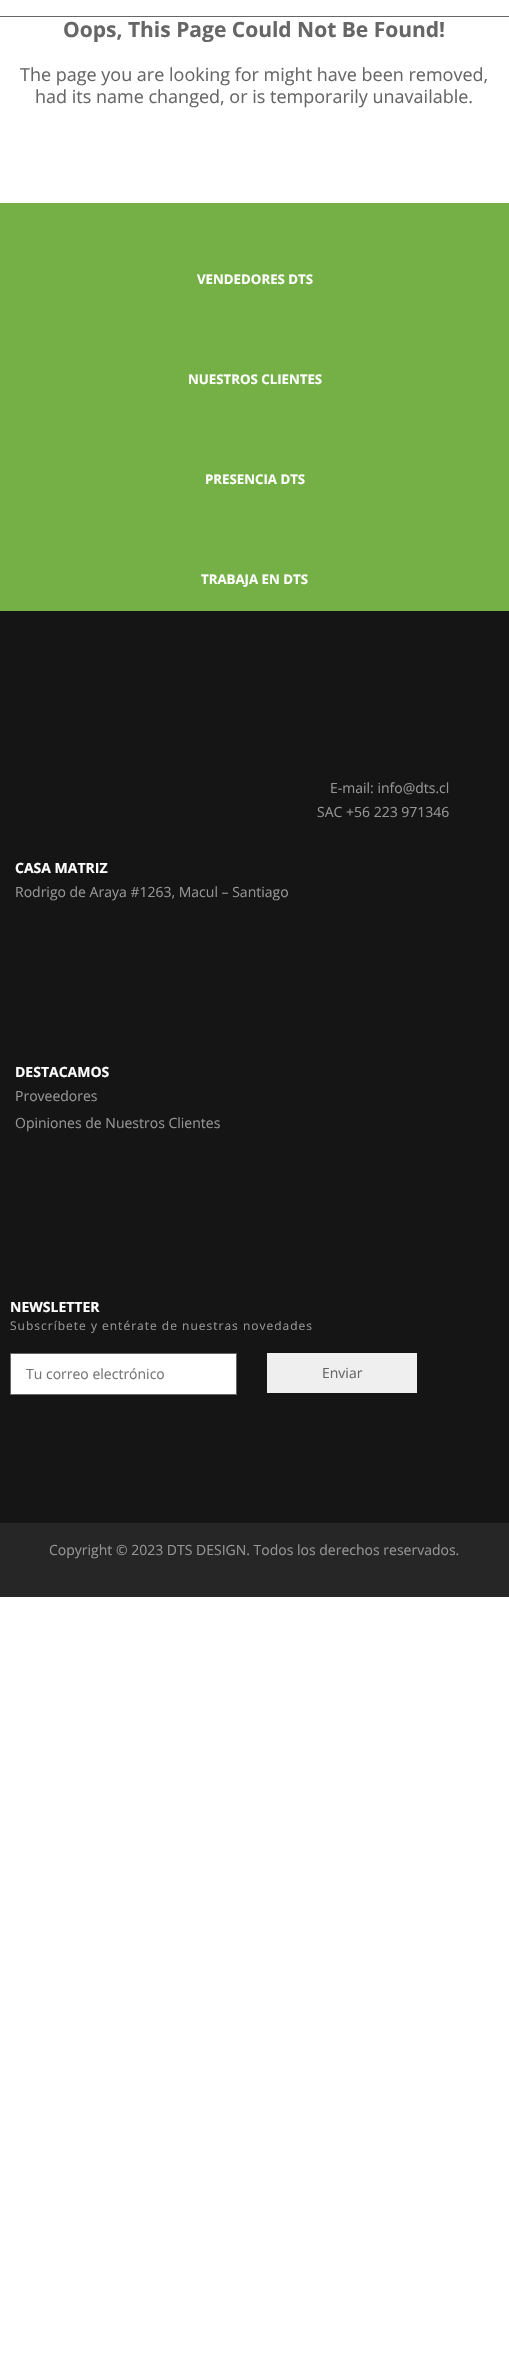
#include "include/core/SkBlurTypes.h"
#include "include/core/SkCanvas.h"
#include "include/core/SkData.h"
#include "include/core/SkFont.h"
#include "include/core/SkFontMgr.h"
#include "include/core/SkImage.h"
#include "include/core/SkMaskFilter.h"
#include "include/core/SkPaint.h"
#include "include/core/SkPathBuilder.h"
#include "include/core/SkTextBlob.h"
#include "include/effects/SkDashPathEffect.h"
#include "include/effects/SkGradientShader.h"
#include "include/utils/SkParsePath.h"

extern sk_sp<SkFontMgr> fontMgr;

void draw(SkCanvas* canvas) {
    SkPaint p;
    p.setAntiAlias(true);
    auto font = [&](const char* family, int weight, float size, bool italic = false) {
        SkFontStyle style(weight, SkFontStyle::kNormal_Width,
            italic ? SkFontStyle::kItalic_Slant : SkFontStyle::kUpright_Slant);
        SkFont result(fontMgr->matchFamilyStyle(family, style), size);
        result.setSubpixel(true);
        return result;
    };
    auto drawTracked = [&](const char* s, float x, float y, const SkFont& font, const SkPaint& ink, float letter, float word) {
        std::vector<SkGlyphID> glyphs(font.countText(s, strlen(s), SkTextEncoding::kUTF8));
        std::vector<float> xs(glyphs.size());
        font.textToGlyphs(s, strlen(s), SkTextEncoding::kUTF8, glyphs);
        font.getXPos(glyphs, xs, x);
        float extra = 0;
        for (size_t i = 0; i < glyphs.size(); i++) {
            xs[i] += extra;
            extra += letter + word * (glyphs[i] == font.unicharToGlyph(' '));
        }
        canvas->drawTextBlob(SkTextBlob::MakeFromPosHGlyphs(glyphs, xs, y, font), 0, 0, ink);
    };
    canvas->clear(0xFFFFFFFF);
    p.setColor(0xFF666666);
    canvas->drawRect(SkRect::MakeLTRB(0, 16, 509, 17), p);
    auto font1 = font("Open Sans", 700, 21);
    canvas->drawString("Oops, This Page Could Not Be Found!", 63, 37, font1, p);
    auto font2 = font("Open Sans", 400, 18);
    canvas->drawString("The page you are looking for might have been removed,", 20, 81, font2, p);
    canvas->drawString("had its name changed, or is temporarily unavailable.", 35, 103, font2, p);
    p.setColor(0xFF75B047);
    canvas->drawRect(SkRect::MakeLTRB(0, 203, 509, 611), p);
    auto font3 = font("Open Sans", 700, 13.25f);
    p.setColor(0xFFFFFFFF);
    {
        const struct { const char* s; float x, y; } items[] = {
            {"VENDEDORES DTS", 197, 284},
            {"NUESTROS CLIENTES", 188, 384},
            {"PRESENCIA DTS", 205, 484},
            {"TRABAJA EN DTS", 201, 584},
        };
        for (auto [s, x, y] : items) {
            canvas->drawString(s, x, y, font3, p);
        }
    }
    p.setColor(0xFF151515);
    canvas->drawRect(SkRect::MakeLTRB(0, 611, 509, 1523), p);
    auto font4 = font("Open Sans", 400, 14);
    p.setColor(0xFF969595);
    canvas->drawString("E-mail: info@dts.cl", 330, 793, font4, p);
    canvas->drawString("SAC +56 223 971346", 317, 817, font4, p);
    auto font5 = font("Open Sans", 700, 14);
    p.setColor(0xFFFFFFFF);
    canvas->drawString("CASA MATRIZ", 15, 873, font5, p);
    p.setColor(0xFF969595);
    canvas->drawString("Rodrigo de Araya #1263, Macul – Santiago", 15, 897, font4, p);
    p.setColor(0xFFFFFFFF);
    canvas->drawString("DESTACAMOS", 15, 1077, font5, p);
    p.setColor(0xFF969595);
    canvas->drawString("Proveedores", 15, 1101, font4, p);
    canvas->drawString("Opiniones de Nuestros Clientes", 15, 1128, font4, p);
    p.setColor(0xFFFFFFFF);
    canvas->drawString("NEWSLETTER", 10, 1312, font5, p);
    auto font6 = font("Open Sans", 400, 12);
    p.setColor(0xFF969595);
    drawTracked("Subscríbete y entérate de nuestras novedades", 10, 1330, font6, p, 1, 0);
    p.setColor(0xFFFFFFFF);
    canvas->drawRect(SkRect::MakeLTRB(10.5f, 1353.5f, 236.5f, 1394.5f), p);
    p.setStyle(SkPaint::kStroke_Style);
    p.setStrokeWidth(1);
    p.setColor(0xFF666666);
    canvas->drawRect(SkRect::MakeLTRB(10.5f, 1353.5f, 236.5f, 1394.5f), p);
    p.setStyle(SkPaint::kFill_Style);
    p.setColor(0xFF757575);
    canvas->drawString("Tu correo electrónico", 26, 1379, font4, p);
    p.setColor(0xFFEFEFEF);
    canvas->drawRect(SkRect::MakeLTRB(267, 1353, 417, 1393), p);
    p.setColor(0xFF666666);
    canvas->drawString("Enviar", 322, 1378, font4, p);
    p.setColor(0xFF262626);
    canvas->drawRect(SkRect::MakeLTRB(0, 1523, 509, 1597), p);
    p.setColor(0xFF969595);
    canvas->drawString("Copyright © 2023 DTS DESIGN. Todos los derechos reservados.", 49, 1555, font4, p);
}
